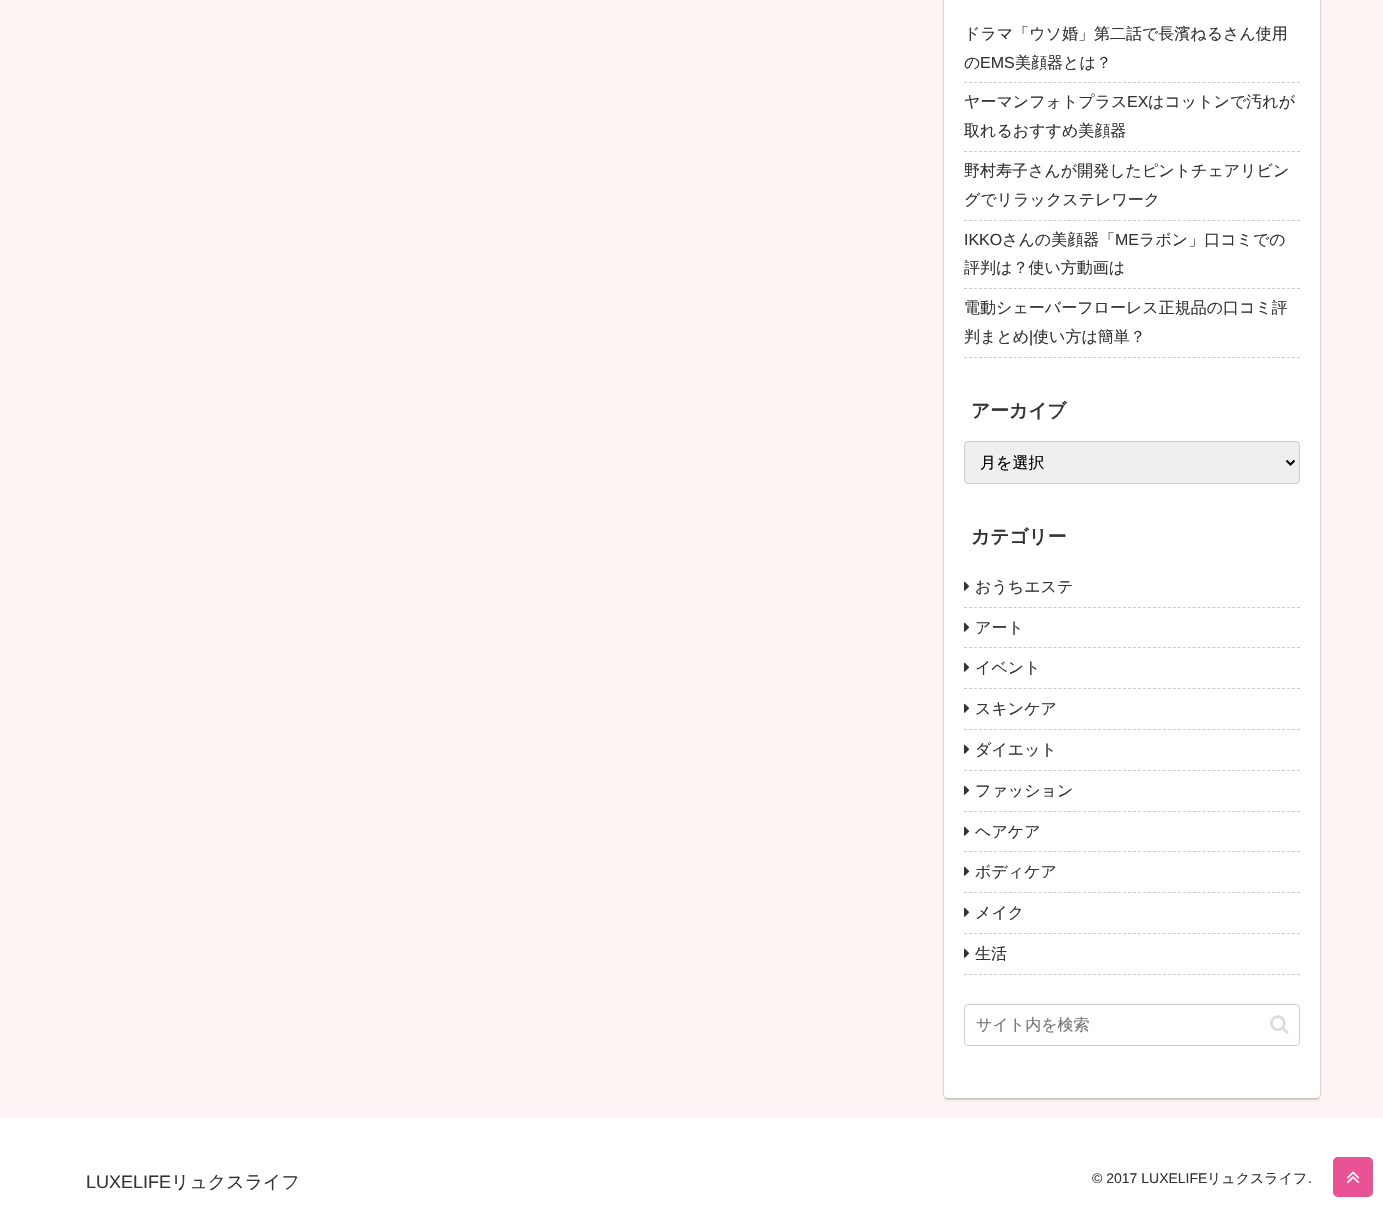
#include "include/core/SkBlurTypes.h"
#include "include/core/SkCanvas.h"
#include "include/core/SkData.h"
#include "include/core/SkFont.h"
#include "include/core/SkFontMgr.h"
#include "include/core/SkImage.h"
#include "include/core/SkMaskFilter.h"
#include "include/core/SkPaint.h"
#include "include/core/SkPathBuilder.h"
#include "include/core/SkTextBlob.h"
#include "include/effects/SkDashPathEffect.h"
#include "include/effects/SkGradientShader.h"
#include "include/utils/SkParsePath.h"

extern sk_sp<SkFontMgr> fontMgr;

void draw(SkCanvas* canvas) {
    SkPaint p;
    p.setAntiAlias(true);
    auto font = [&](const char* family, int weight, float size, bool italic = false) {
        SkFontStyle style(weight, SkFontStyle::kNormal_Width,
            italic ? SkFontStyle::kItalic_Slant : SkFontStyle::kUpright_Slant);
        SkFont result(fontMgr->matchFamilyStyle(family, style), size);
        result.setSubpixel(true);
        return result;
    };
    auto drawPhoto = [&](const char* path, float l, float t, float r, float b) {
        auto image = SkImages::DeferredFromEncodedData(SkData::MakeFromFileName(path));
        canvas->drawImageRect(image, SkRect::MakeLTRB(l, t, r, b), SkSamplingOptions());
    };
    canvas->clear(0xFFFEF4F4);
    p.setStyle(SkPaint::kStroke_Style);
    p.setStrokeWidth(1);
    p.setColor(0xFFEAE0E0);
    canvas->drawRoundRect(SkRect::MakeLTRB(943.5f, -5.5f, 1320.5f, 1098.5f), 4.5f, 4.5f, p);
    p.setStyle(SkPaint::kFill_Style);
    p.setColor(0x29000000);
    p.setMaskFilter(SkMaskFilter::MakeBlur(kNormal_SkBlurStyle, 1));
    canvas->drawRoundRect(SkRect::MakeLTRB(944, -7, 1320, 1100), 4, 4, p);
    p.setMaskFilter(nullptr);
    p.setColor(0xFFFFFFFF);
    canvas->drawRoundRect(SkRect::MakeLTRB(944, -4, 1320, 1098), 4, 4, p);
    p.setStyle(SkPaint::kStroke_Style);
    p.setColor(0xFFCCCCCC);
    p.setPathEffect(SkDashPathEffect::Make({{3, 1.97f}}, 0));
    canvas->drawPath(SkPathBuilder().moveTo(964, 82.5f).lineTo(1300, 82.5f).detach(), p);
    p.setPathEffect(nullptr);
    auto font1 = font("WenQuanYi Zen Hei", 500, 16);
    p.setStyle(SkPaint::kFill_Style);
    p.setColor(0xFF333333);
    canvas->drawString("ドラマ「ウソ婚」第二話で長濱ねるさん使用", 964, 39, font1, p);
    canvas->drawString("の", 964, 68, font1, p);
    auto font2 = font("Liberation Sans", 400, 16);
    canvas->drawString("EMS", 980, 68, font2, p);
    canvas->drawString("美顔器とは？", 1015, 68, font1, p);
    p.setStyle(SkPaint::kStroke_Style);
    p.setColor(0xFFCCCCCC);
    p.setPathEffect(SkDashPathEffect::Make({{3, 1.97f}}, 0));
    canvas->drawPath(SkPathBuilder().moveTo(964, 151.5f).lineTo(1300, 151.5f).detach(), p);
    p.setPathEffect(nullptr);
    p.setStyle(SkPaint::kFill_Style);
    p.setColor(0xFF333333);
    canvas->drawString("ヤーマンフォトプラス", 964, 107, font1, p);
    canvas->drawString("EX", 1127, 107, font2, p);
    canvas->drawString("はコットンで汚れが", 1148, 107, font1, p);
    canvas->drawString("取れるおすすめ美顔器", 964, 136, font1, p);
    p.setStyle(SkPaint::kStroke_Style);
    p.setColor(0xFFCCCCCC);
    p.setPathEffect(SkDashPathEffect::Make({{3, 1.97f}}, 0));
    canvas->drawPath(SkPathBuilder().moveTo(964, 220.5f).lineTo(1300, 220.5f).detach(), p);
    p.setPathEffect(nullptr);
    p.setStyle(SkPaint::kFill_Style);
    p.setColor(0xFF333333);
    canvas->drawString("野村寿子さんが開発したピントチェアリビン", 964, 176, font1, p);
    canvas->drawString("グでリラックステレワーク", 964, 205, font1, p);
    p.setStyle(SkPaint::kStroke_Style);
    p.setColor(0xFFCCCCCC);
    p.setPathEffect(SkDashPathEffect::Make({{3, 1.97f}}, 0));
    canvas->drawPath(SkPathBuilder().moveTo(964, 288.5f).lineTo(1300, 288.5f).detach(), p);
    p.setPathEffect(nullptr);
    p.setStyle(SkPaint::kFill_Style);
    p.setColor(0xFF333333);
    canvas->drawString("IKKO", 964, 245, font2, p);
    canvas->drawString("さんの美顔器「", 1002, 245, font1, p);
    canvas->drawString("ME", 1115, 245, font2, p);
    canvas->drawString("ラボン」口コミでの", 1139, 245, font1, p);
    canvas->drawString("評判は？使い方動画は", 964, 273, font1, p);
    p.setStyle(SkPaint::kStroke_Style);
    p.setColor(0xFFCCCCCC);
    p.setPathEffect(SkDashPathEffect::Make({{3, 1.97f}}, 0));
    canvas->drawPath(SkPathBuilder().moveTo(964, 357.5f).lineTo(1300, 357.5f).detach(), p);
    p.setPathEffect(nullptr);
    p.setStyle(SkPaint::kFill_Style);
    p.setColor(0xFF333333);
    canvas->drawString("電動シェーバーフローレス正規品の口コミ評", 964, 313, font1, p);
    canvas->drawString("判まとめ", 964, 342, font1, p);
    canvas->drawString("|", 1029, 342, font2, p);
    canvas->drawString("使い方は簡単？", 1033, 342, font1, p);
    auto font3 = font("WenQuanYi Zen Hei", 700, 18.75f);
    canvas->drawString("アーカイブ", 971, 417, font3, p);
    p.setColor(0xFFEFEFEF);
    canvas->drawRoundRect(SkRect::MakeLTRB(964.5f, 441.5f, 1299.5f, 483.5f), 3.5f, 3.5f, p);
    p.setStyle(SkPaint::kStroke_Style);
    p.setColor(0xFFCCCCCC);
    canvas->drawRoundRect(SkRect::MakeLTRB(964.5f, 441.5f, 1299.5f, 483.5f), 3.5f, 3.5f, p);
    p.setStrokeWidth(2);
    p.setColor(0xFF000000);
    canvas->drawPath(SkPathBuilder().moveTo(1286.5f, 460.5f).lineTo(1290.5f, 464.5f).lineTo(1294.5f, 460.5f).detach(), p);
    p.setStyle(SkPaint::kFill_Style);
    canvas->drawString("月を選択", 980, 468, font1, p);
    p.setColor(0xFF333333);
    canvas->drawString("カテゴリー", 971, 543, font3, p);
    p.setStyle(SkPaint::kStroke_Style);
    p.setStrokeWidth(1);
    p.setColor(0xFFCCCCCC);
    p.setPathEffect(SkDashPathEffect::Make({{3, 1.97f}}, 0));
    canvas->drawPath(SkPathBuilder().moveTo(964, 607.5f).lineTo(1300, 607.5f).detach(), p);
    p.setPathEffect(nullptr);
    drawPhoto("media/1.png", 964, 581, 970, 591);
    p.setStyle(SkPaint::kFill_Style);
    p.setColor(0xFF333333);
    canvas->drawString("おうちエステ", 975, 592, font1, p);
    p.setStyle(SkPaint::kStroke_Style);
    p.setColor(0xFFCCCCCC);
    p.setPathEffect(SkDashPathEffect::Make({{3, 1.97f}}, 0));
    canvas->drawPath(SkPathBuilder().moveTo(964, 647.5f).lineTo(1300, 647.5f).detach(), p);
    p.setPathEffect(nullptr);
    drawPhoto("media/1.png", 964, 622, 970, 632);
    p.setStyle(SkPaint::kFill_Style);
    p.setColor(0xFF333333);
    canvas->drawString("アート", 975, 633, font1, p);
    p.setStyle(SkPaint::kStroke_Style);
    p.setColor(0xFFCCCCCC);
    p.setPathEffect(SkDashPathEffect::Make({{3, 1.97f}}, 0));
    canvas->drawPath(SkPathBuilder().moveTo(964, 688.5f).lineTo(1300, 688.5f).detach(), p);
    p.setPathEffect(nullptr);
    drawPhoto("media/1.png", 964, 662, 970, 672);
    p.setStyle(SkPaint::kFill_Style);
    p.setColor(0xFF333333);
    canvas->drawString("イベント", 975, 673, font1, p);
    p.setStyle(SkPaint::kStroke_Style);
    p.setColor(0xFFCCCCCC);
    p.setPathEffect(SkDashPathEffect::Make({{3, 1.97f}}, 0));
    canvas->drawPath(SkPathBuilder().moveTo(964, 729.5f).lineTo(1300, 729.5f).detach(), p);
    p.setPathEffect(nullptr);
    drawPhoto("media/1.png", 964, 703, 970, 713);
    p.setStyle(SkPaint::kFill_Style);
    p.setColor(0xFF333333);
    canvas->drawString("スキンケア", 975, 714, font1, p);
    p.setStyle(SkPaint::kStroke_Style);
    p.setColor(0xFFCCCCCC);
    p.setPathEffect(SkDashPathEffect::Make({{3, 1.97f}}, 0));
    canvas->drawPath(SkPathBuilder().moveTo(964, 770.5f).lineTo(1300, 770.5f).detach(), p);
    p.setPathEffect(nullptr);
    drawPhoto("media/1.png", 964, 744, 970, 754);
    p.setStyle(SkPaint::kFill_Style);
    p.setColor(0xFF333333);
    canvas->drawString("ダイエット", 975, 755, font1, p);
    p.setStyle(SkPaint::kStroke_Style);
    p.setColor(0xFFCCCCCC);
    p.setPathEffect(SkDashPathEffect::Make({{3, 1.97f}}, 0));
    canvas->drawPath(SkPathBuilder().moveTo(964, 811.5f).lineTo(1300, 811.5f).detach(), p);
    p.setPathEffect(nullptr);
    drawPhoto("media/1.png", 964, 785, 970, 795);
    p.setStyle(SkPaint::kFill_Style);
    p.setColor(0xFF333333);
    canvas->drawString("ファッション", 975, 796, font1, p);
    p.setStyle(SkPaint::kStroke_Style);
    p.setColor(0xFFCCCCCC);
    p.setPathEffect(SkDashPathEffect::Make({{3, 1.97f}}, 0));
    canvas->drawPath(SkPathBuilder().moveTo(964, 851.5f).lineTo(1300, 851.5f).detach(), p);
    p.setPathEffect(nullptr);
    drawPhoto("media/1.png", 964, 826, 970, 836);
    p.setStyle(SkPaint::kFill_Style);
    p.setColor(0xFF333333);
    canvas->drawString("ヘアケア", 975, 837, font1, p);
    p.setStyle(SkPaint::kStroke_Style);
    p.setColor(0xFFCCCCCC);
    p.setPathEffect(SkDashPathEffect::Make({{3, 1.97f}}, 0));
    canvas->drawPath(SkPathBuilder().moveTo(964, 892.5f).lineTo(1300, 892.5f).detach(), p);
    p.setPathEffect(nullptr);
    drawPhoto("media/1.png", 964, 866, 970, 876);
    p.setStyle(SkPaint::kFill_Style);
    p.setColor(0xFF333333);
    canvas->drawString("ボディケア", 975, 877, font1, p);
    p.setStyle(SkPaint::kStroke_Style);
    p.setColor(0xFFCCCCCC);
    p.setPathEffect(SkDashPathEffect::Make({{3, 1.97f}}, 0));
    canvas->drawPath(SkPathBuilder().moveTo(964, 933.5f).lineTo(1300, 933.5f).detach(), p);
    p.setPathEffect(nullptr);
    drawPhoto("media/1.png", 964, 907, 970, 917);
    p.setStyle(SkPaint::kFill_Style);
    p.setColor(0xFF333333);
    canvas->drawString("メイク", 975, 918, font1, p);
    p.setStyle(SkPaint::kStroke_Style);
    p.setColor(0xFFCCCCCC);
    p.setPathEffect(SkDashPathEffect::Make({{3, 1.97f}}, 0));
    canvas->drawPath(SkPathBuilder().moveTo(964, 974.5f).lineTo(1300, 974.5f).detach(), p);
    p.setPathEffect(nullptr);
    drawPhoto("media/1.png", 964, 948, 970, 958);
    p.setStyle(SkPaint::kFill_Style);
    p.setColor(0xFF333333);
    canvas->drawString("生活", 975, 959, font1, p);
    p.setStyle(SkPaint::kStroke_Style);
    p.setColor(0xFFCCCCCC);
    canvas->drawRoundRect(SkRect::MakeLTRB(964.5f, 1004.5f, 1299.5f, 1045.5f), 3.5f, 3.5f, p);
    p.setStyle(SkPaint::kFill_Style);
    p.setColor(0xFF757575);
    canvas->drawString("サイト内を検索", 976, 1030, font1, p);
    drawPhoto("media/2.png", 1270, 1015, 1289, 1034);
    p.setColor(0xFFFFFFFF);
    canvas->drawRect(SkRect::MakeLTRB(0, 1118, 1383, 1207), p);
    auto font4 = font("Liberation Sans", 400, 18);
    p.setColor(0xFF333333);
    canvas->drawString("LUXELIFE", 86, 1188, font4, p);
    auto font5 = font("WenQuanYi Zen Hei", 500, 18);
    canvas->drawString("リュクスライフ", 171, 1188, font5, p);
    auto font6 = font("Liberation Sans", 400, 14);
    canvas->drawString("© 2017 LUXELIFE", 1092, 1183, font6, p);
    auto font7 = font("WenQuanYi Zen Hei", 500, 14);
    canvas->drawString("リュクスライフ", 1207, 1183, font7, p);
    canvas->drawString(".", 1308, 1183, font6, p);
    p.setColor(0xFFE95295);
    canvas->drawRoundRect(SkRect::MakeLTRB(1333, 1157, 1373, 1197), 5, 5, p);
    drawPhoto("media/3.png", 1347, 1171, 1360, 1184);
}
